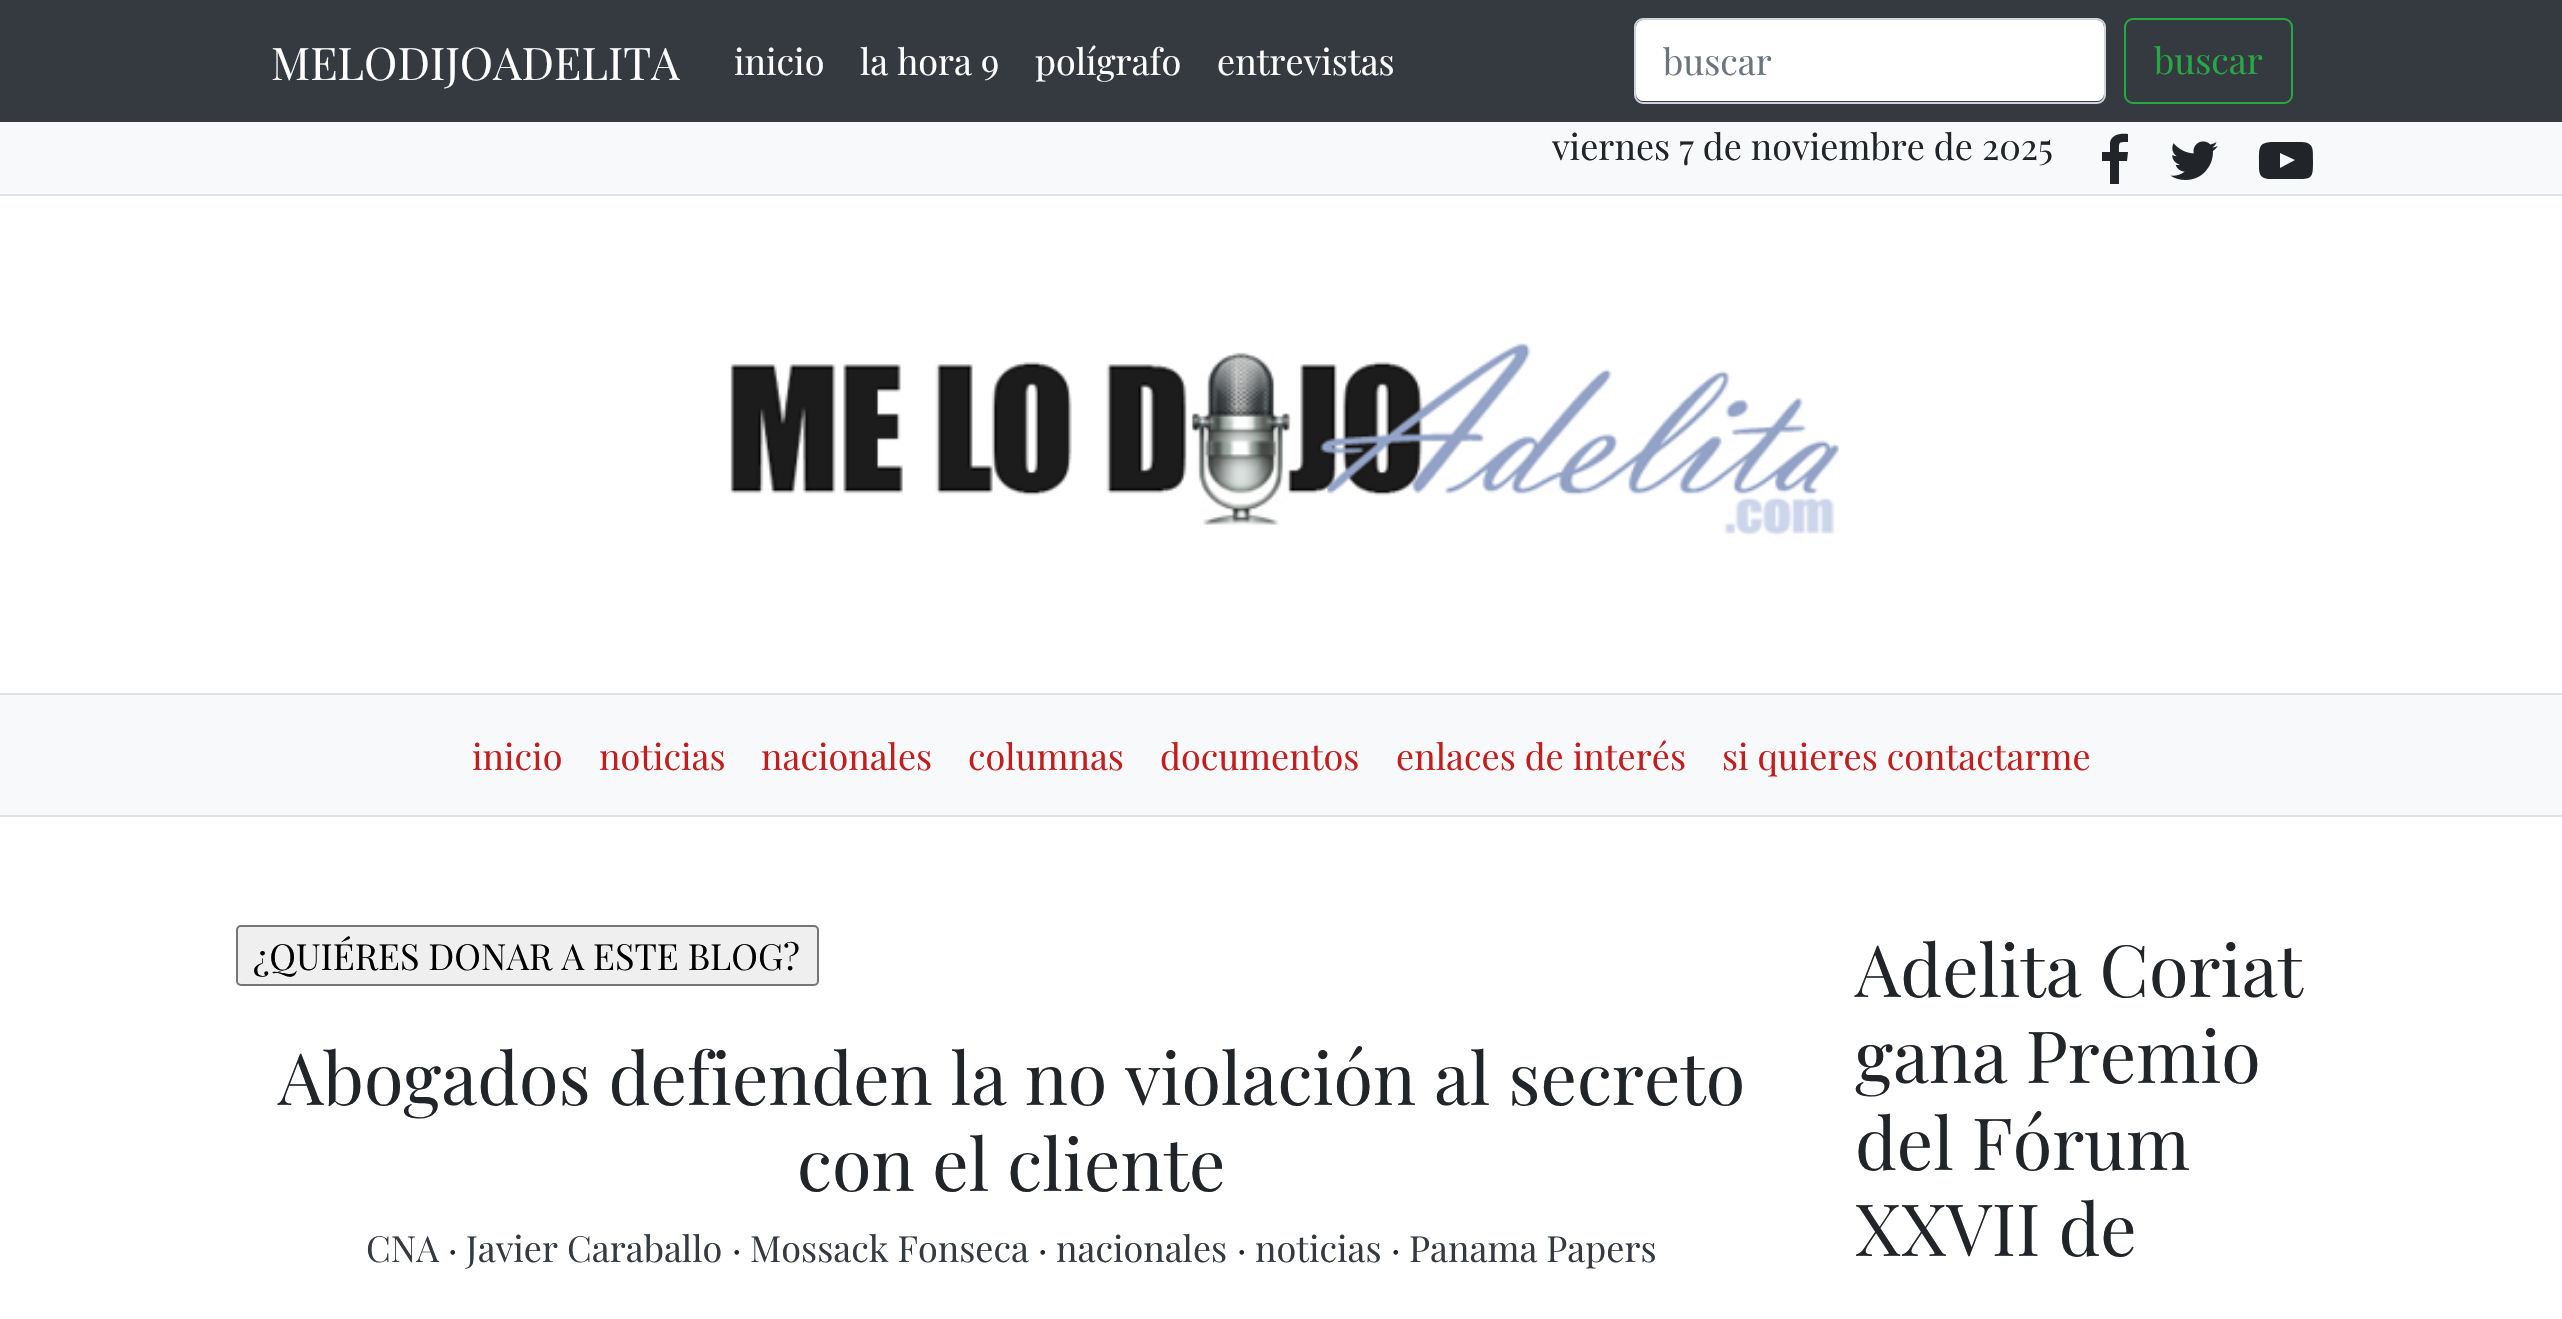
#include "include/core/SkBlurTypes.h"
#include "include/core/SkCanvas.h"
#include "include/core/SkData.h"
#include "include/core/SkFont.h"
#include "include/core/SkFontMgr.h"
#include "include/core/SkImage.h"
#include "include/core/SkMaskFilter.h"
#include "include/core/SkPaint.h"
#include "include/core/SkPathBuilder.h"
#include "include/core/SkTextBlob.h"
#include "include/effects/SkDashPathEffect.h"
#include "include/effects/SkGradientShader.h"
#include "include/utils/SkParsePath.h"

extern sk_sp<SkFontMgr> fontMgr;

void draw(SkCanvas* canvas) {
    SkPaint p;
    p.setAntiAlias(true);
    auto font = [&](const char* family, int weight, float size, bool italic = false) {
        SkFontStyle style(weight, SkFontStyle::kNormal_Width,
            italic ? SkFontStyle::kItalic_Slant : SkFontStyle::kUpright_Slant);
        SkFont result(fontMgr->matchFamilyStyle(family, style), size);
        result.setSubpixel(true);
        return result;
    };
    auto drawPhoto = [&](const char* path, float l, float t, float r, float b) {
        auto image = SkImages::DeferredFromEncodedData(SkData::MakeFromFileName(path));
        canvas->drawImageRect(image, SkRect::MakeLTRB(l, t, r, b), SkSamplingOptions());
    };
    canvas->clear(0xFFFFFFFF);
    p.setColor(0xFF343A40);
    canvas->drawRect(SkRect::MakeLTRB(0, 0, 2562, 122), p);
    auto font1 = font("Playfair Display", 400, 45);
    p.setColor(0xFFFFFFFF);
    canvas->drawString("MELODIJOADELITA", 271, 80, font1, p);
    auto font2 = font("Playfair Display", 400, 36);
    {
        const struct { const char* s; float x, y; } items[] = {
            {"inicio", 734, 75},
            {"la hora 9", 860, 75},
            {"polígrafo", 1035, 75},
            {"entrevistas", 1217, 75},
        };
        for (auto [s, x, y] : items) {
            canvas->drawString(s, x, y, font2, p);
        }
    }
    canvas->drawRoundRect(SkRect::MakeLTRB(1636, 20, 2104, 101), 7, 7, p);
    p.setStyle(SkPaint::kStroke_Style);
    p.setStrokeWidth(2);
    p.setColor(0xFFCED4DA);
    canvas->drawRoundRect(SkRect::MakeLTRB(1635, 19, 2105, 103), 8, 8, p);
    p.setStyle(SkPaint::kFill_Style);
    p.setColor(0xFF6C757D);
    canvas->drawString("buscar", 1663, 75, font2, p);
    p.setStyle(SkPaint::kStroke_Style);
    p.setColor(0xFF28A745);
    canvas->drawRoundRect(SkRect::MakeLTRB(2125, 19, 2292, 103), 8, 8, p);
    p.setStyle(SkPaint::kFill_Style);
    canvas->drawString("buscar", 2154, 74, font2, p);
    p.setColor(0xFFF8F9FA);
    canvas->drawRect(SkRect::MakeLTRB(0, 122, 2562, 194), p);
    p.setColor(0xFFDEE2E6);
    canvas->drawRect(SkRect::MakeLTRB(0, 194, 2562, 196), p);
    p.setColor(0xFF212529);
    canvas->drawString("viernes 7 de noviembre de 2025", 1552, 160, font2, p);
    canvas->drawPath(SkPathBuilder().moveTo(2128, 134).lineTo(2128, 142).cubicTo(2118, 142, 2119, 142, 2119, 152).lineTo(2128, 152).lineTo(2127, 161).lineTo(2119, 161).lineTo(2119, 184).lineTo(2110, 184).lineTo(2110, 161).lineTo(2102, 161).lineTo(2102, 152).lineTo(2110, 152).lineTo(2110, 143).cubicTo(2111, 134, 2121, 133, 2128, 134).close().detach(), p);
    drawPhoto("media/1.png", 2170, 141, 2218, 180);
    canvas->drawPath(SkPathBuilder().moveTo(2280, 168).lineTo(2295, 160).lineTo(2280, 153).close().moveTo(2286, 142).lineTo(2302, 142).cubicTo(2314, 143, 2313, 149, 2313, 161).cubicTo(2313, 175, 2313, 179, 2301, 179).lineTo(2271, 179).cubicTo(2258, 179, 2259, 172, 2259, 161).cubicTo(2259, 147, 2259, 143, 2271, 142).close().detach(), p);
    drawPhoto("media/2.png", 730, 342, 1840, 536);
    {
        const struct { float l, t, r, b; SkColor color; } items[] = {
            {0, 695, 2562, 815, 0xFFF8F9FA},
            {0, 693, 2562, 695, 0xFFDEE2E6},
            {0, 815, 2562, 817, 0xFFDEE2E6},
        };
        for (auto [l, t, r, b, color] : items) {
            p.setColor(color);
            canvas->drawRect(SkRect::MakeLTRB(l, t, r, b), p);
        }
    }
    p.setColor(0xFFC41D1D);
    {
        const struct { const char* s; float x, y; } items[] = {
            {"inicio", 472, 770},
            {"noticias", 599, 770},
            {"nacionales", 761, 770},
            {"columnas", 968, 770},
            {"documentos", 1160, 770},
            {"enlaces de interés", 1396, 770},
            {"si quieres contactarme", 1722, 770},
        };
        for (auto [s, x, y] : items) {
            canvas->drawString(s, x, y, font2, p);
        }
    }
    p.setColor(0xFFEFEFEF);
    canvas->drawRoundRect(SkRect::MakeLTRB(237, 926, 818, 985), 4, 4, p);
    p.setStyle(SkPaint::kStroke_Style);
    p.setColor(0xFF767676);
    canvas->drawRoundRect(SkRect::MakeLTRB(237, 926, 818, 985), 4, 4, p);
    p.setStyle(SkPaint::kFill_Style);
    p.setColor(0xFF000000);
    canvas->drawString("¿QUIÉRES DONAR A ESTE BLOG?", 253, 970, font2, p);
    auto font3 = font("Playfair Display", 400, 72);
    p.setColor(0xFF212529);
    canvas->drawString("Abogados defienden la no violación al secreto", 278, 1105, font3, p);
    canvas->drawString("con el cliente", 797, 1191, font3, p);
    p.setColor(0xFF343A40);
    canvas->drawString("CNA", 366, 1262, font2, p);
    p.setColor(0xFF212529);
    canvas->drawString("·", 448, 1262, font2, p);
    p.setColor(0xFF343A40);
    canvas->drawString("Javier Caraballo", 466, 1262, font2, p);
    p.setColor(0xFF212529);
    canvas->drawString("·", 732, 1262, font2, p);
    p.setColor(0xFF343A40);
    canvas->drawString("Mossack Fonseca", 750, 1262, font2, p);
    p.setColor(0xFF212529);
    canvas->drawString("·", 1038, 1262, font2, p);
    p.setColor(0xFF343A40);
    canvas->drawString("nacionales", 1056, 1262, font2, p);
    p.setColor(0xFF212529);
    canvas->drawString("·", 1237, 1262, font2, p);
    p.setColor(0xFF343A40);
    canvas->drawString("noticias", 1255, 1262, font2, p);
    p.setColor(0xFF212529);
    canvas->drawString("·", 1391, 1262, font2, p);
    p.setColor(0xFF343A40);
    canvas->drawString("Panama Papers", 1409, 1262, font2, p);
    p.setColor(0xFF212529);
    {
        const struct { const char* s; float x, y; } items[] = {
            {"Adelita Coriat", 1855, 997},
            {"gana Premio", 1855, 1083},
            {"del Fórum", 1855, 1170},
            {"XXVII de", 1855, 1256},
        };
        for (auto [s, x, y] : items) {
            canvas->drawString(s, x, y, font3, p);
        }
    }
}
